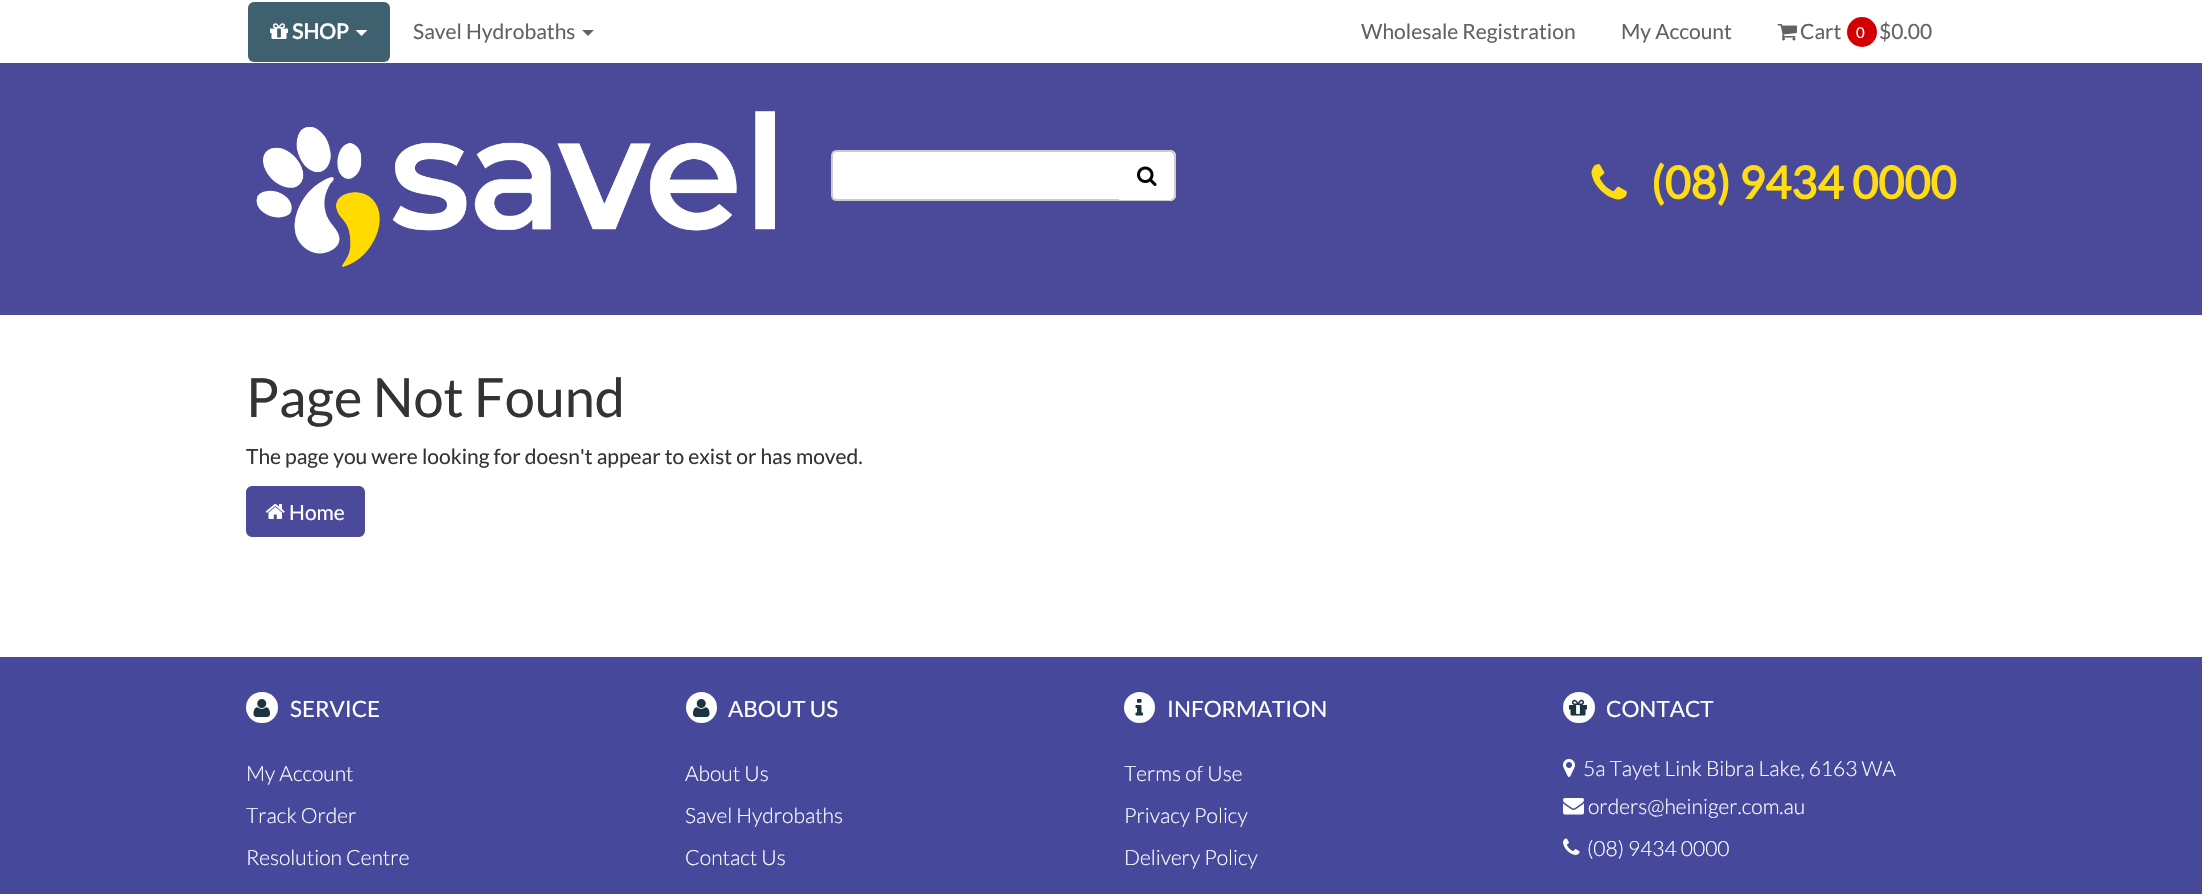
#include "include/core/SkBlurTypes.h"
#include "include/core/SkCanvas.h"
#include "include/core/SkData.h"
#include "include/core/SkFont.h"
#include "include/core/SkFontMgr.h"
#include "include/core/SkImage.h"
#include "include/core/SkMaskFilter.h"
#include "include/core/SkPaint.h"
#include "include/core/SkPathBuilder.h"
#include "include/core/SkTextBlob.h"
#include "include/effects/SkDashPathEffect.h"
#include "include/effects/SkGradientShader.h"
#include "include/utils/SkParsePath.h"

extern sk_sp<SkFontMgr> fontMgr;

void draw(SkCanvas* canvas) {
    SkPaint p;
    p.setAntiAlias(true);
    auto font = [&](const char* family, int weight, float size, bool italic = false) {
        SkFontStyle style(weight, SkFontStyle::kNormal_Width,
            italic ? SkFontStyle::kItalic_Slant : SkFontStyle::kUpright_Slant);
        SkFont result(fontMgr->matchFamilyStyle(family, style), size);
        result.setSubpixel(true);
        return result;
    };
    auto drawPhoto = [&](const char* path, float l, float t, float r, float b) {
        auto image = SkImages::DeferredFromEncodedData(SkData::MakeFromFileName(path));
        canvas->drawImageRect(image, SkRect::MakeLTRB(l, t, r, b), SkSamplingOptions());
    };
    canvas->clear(0xFFFFFFFF);
    p.setColor(0xFF3F606E);
    canvas->drawRoundRect(SkRect::MakeLTRB(248, 2, 390, 62), 6, 6, p);
    drawPhoto("media/1.png", 270, 23, 288, 39);
    auto font1 = font("Lato", 700, 21);
    p.setColor(0xFFFFFFFF);
    canvas->drawString("SHOP", 292, 39, font1, p);
    canvas->drawPath(SkPathBuilder().moveTo(355.5f, 30).lineTo(367.5f, 30).lineTo(361.5f, 36).close().detach(), p);
    auto font2 = font("Lato", 400, 21);
    p.setColor(0xFF626262);
    canvas->drawString("Savel Hydrobaths", 413, 39, font2, p);
    canvas->drawPath(SkPathBuilder().moveTo(582, 30).lineTo(594, 30).lineTo(588, 36).close().detach(), p);
    canvas->drawString("Wholesale Registration", 1361, 39, font2, p);
    canvas->drawString("My Account", 1621, 39, font2, p);
    drawPhoto("media/2.png", 1777, 24, 1797, 41);
    canvas->drawString("Cart", 1800, 39, font2, p);
    p.setColor(0xFFD20000);
    canvas->drawCircle(1862, 32, 15, p);
    auto font3 = font("Lato", 400, 15);
    p.setColor(0xFFFFFFFF);
    canvas->drawString("0", 1856, 38, font3, p);
    p.setColor(0xFF626262);
    canvas->drawString("$0.00", 1879, 39, font2, p);
    p.setColor(0xFF4A499A);
    canvas->drawRect(SkRect::MakeLTRB(0, 63, 2202, 315), p);
    drawPhoto("media/3.png", 256, 111, 775, 267);
    p.setColor(0xFFFFFFFF);
    canvas->drawPath(SkPathBuilder().moveTo(837, 151).lineTo(1120, 151).lineTo(1120, 200).lineTo(837, 200).cubicTo(834, 200, 832, 198, 832, 195).lineTo(832, 156).cubicTo(832, 153, 834, 151, 837, 151).close().detach(), p);
    p.setStyle(SkPaint::kStroke_Style);
    p.setStrokeWidth(2);
    p.setColor(0xFFCCCCCC);
    canvas->drawPath(SkPathBuilder().moveTo(837, 151).lineTo(1120, 151).lineTo(1120, 200).lineTo(837, 200).cubicTo(834, 200, 832, 198, 832, 195).lineTo(832, 156).cubicTo(832, 153, 834, 151, 837, 151).close().detach(), p);
    p.setStyle(SkPaint::kFill_Style);
    p.setColor(0xFFFFFFFF);
    canvas->drawPath(SkPathBuilder().moveTo(1119, 150).lineTo(1170, 150).cubicTo(1173.5f, 150, 1176, 152.5f, 1176, 156).lineTo(1176, 195).cubicTo(1176, 198.5f, 1173.5f, 201, 1170, 201).lineTo(1119, 201).close().detach(), p);
    p.setColor(0xFFCCCCCC);
    canvas->drawPath(SkPathBuilder(SkPathFillType::kEvenOdd).moveTo(1119, 150).lineTo(1170, 150).cubicTo(1173, 150, 1176, 153, 1176, 156).lineTo(1176, 195).cubicTo(1176, 198, 1173, 201, 1170, 201).lineTo(1119, 201).close().moveTo(1119, 152).lineTo(1170, 152).cubicTo(1172, 152, 1174, 154, 1174, 156).lineTo(1174, 195).cubicTo(1174, 197, 1172, 200, 1170, 200).lineTo(1119, 200).close().detach(), p);
    drawPhoto("media/4.png", 1137, 166, 1157, 186);
    drawPhoto("media/5.png", 1591, 164, 1627, 200);
    auto font4 = font("Lato", 700, 45);
    p.setColor(0xFFFFDD14);
    canvas->drawString("(08) 9434 0000", 1651, 199, font4, p);
    auto font5 = font("Lato", 400, 54);
    p.setColor(0xFF333333);
    canvas->drawString("Page Not Found", 246, 417, font5, p);
    canvas->drawString("The page you were looking for doesn't appear to exist or has moved.", 246, 464, font2, p);
    p.setColor(0xFF4A499A);
    canvas->drawRoundRect(SkRect::MakeLTRB(247, 487, 364, 536), 5, 5, p);
    p.setStyle(SkPaint::kStroke_Style);
    canvas->drawRoundRect(SkRect::MakeLTRB(247, 487, 364, 536), 5, 5, p);
    drawPhoto("media/6.png", 265, 504, 285, 519);
    p.setStyle(SkPaint::kFill_Style);
    p.setColor(0xFFFFFFFF);
    canvas->drawString("Home", 289, 520, font2, p);
    p.setColor(0xFF46489B);
    canvas->drawRect(SkRect::MakeLTRB(0, 657, 2202, 894), p);
    p.setColor(0xFFFFFFFF);
    canvas->drawRoundRect(SkRect::MakeLTRB(246, 692, 278, 723), 15.5f, 15.5f, p);
    drawPhoto("media/7.png", 253, 699, 270, 717);
    auto font6 = font("Lato", 400, 22.5f);
    canvas->drawString("SERVICE", 290, 717, font6, p);
    auto font7 = font("Lato", 300, 21);
    {
        const struct { const char* s; float x, y; } items[] = {
            {"My Account", 246, 781},
            {"Track Order", 246, 823},
            {"Resolution Centre", 246, 865},
        };
        for (auto [s, x, y] : items) {
            canvas->drawString(s, x, y, font7, p);
        }
    }
    canvas->drawCircle(701.5f, 707.5f, 15.5f, p);
    drawPhoto("media/8.png", 693, 699, 710, 717);
    canvas->drawString("ABOUT US", 728, 717, font6, p);
    {
        const struct { const char* s; float x, y; } items[] = {
            {"About Us", 685, 781},
            {"Savel Hydrobaths", 685, 823},
            {"Contact Us", 685, 865},
        };
        for (auto [s, x, y] : items) {
            canvas->drawString(s, x, y, font7, p);
        }
    }
    canvas->drawCircle(1139.5f, 707.5f, 15.5f, p);
    drawPhoto("media/9.png", 1135, 699, 1143, 716);
    canvas->drawString("INFORMATION", 1167, 717, font6, p);
    {
        const struct { const char* s; float x, y; } items[] = {
            {"Terms of Use", 1124, 781},
            {"Privacy Policy", 1124, 823},
            {"Delivery Policy", 1124, 865},
        };
        for (auto [s, x, y] : items) {
            canvas->drawString(s, x, y, font7, p);
        }
    }
    canvas->drawRoundRect(SkRect::MakeLTRB(1563, 692, 1595, 723), 15.5f, 15.5f, p);
    drawPhoto("media/10.png", 1569, 699, 1587, 716);
    canvas->drawString("CONTACT", 1606, 717, font6, p);
    drawPhoto("media/11.png", 1563, 759, 1575, 777);
    canvas->drawString("5a Tayet Link Bibra Lake, 6163 WA", 1583, 776, font7, p);
    drawPhoto("media/12.png", 1563, 798, 1584, 815);
    canvas->drawString("orders@heiniger.com.au", 1588, 814, font7, p);
    drawPhoto("media/13.png", 1563, 838, 1580, 855);
    canvas->drawString("(08) 9434 0000", 1587, 856, font7, p);
}
